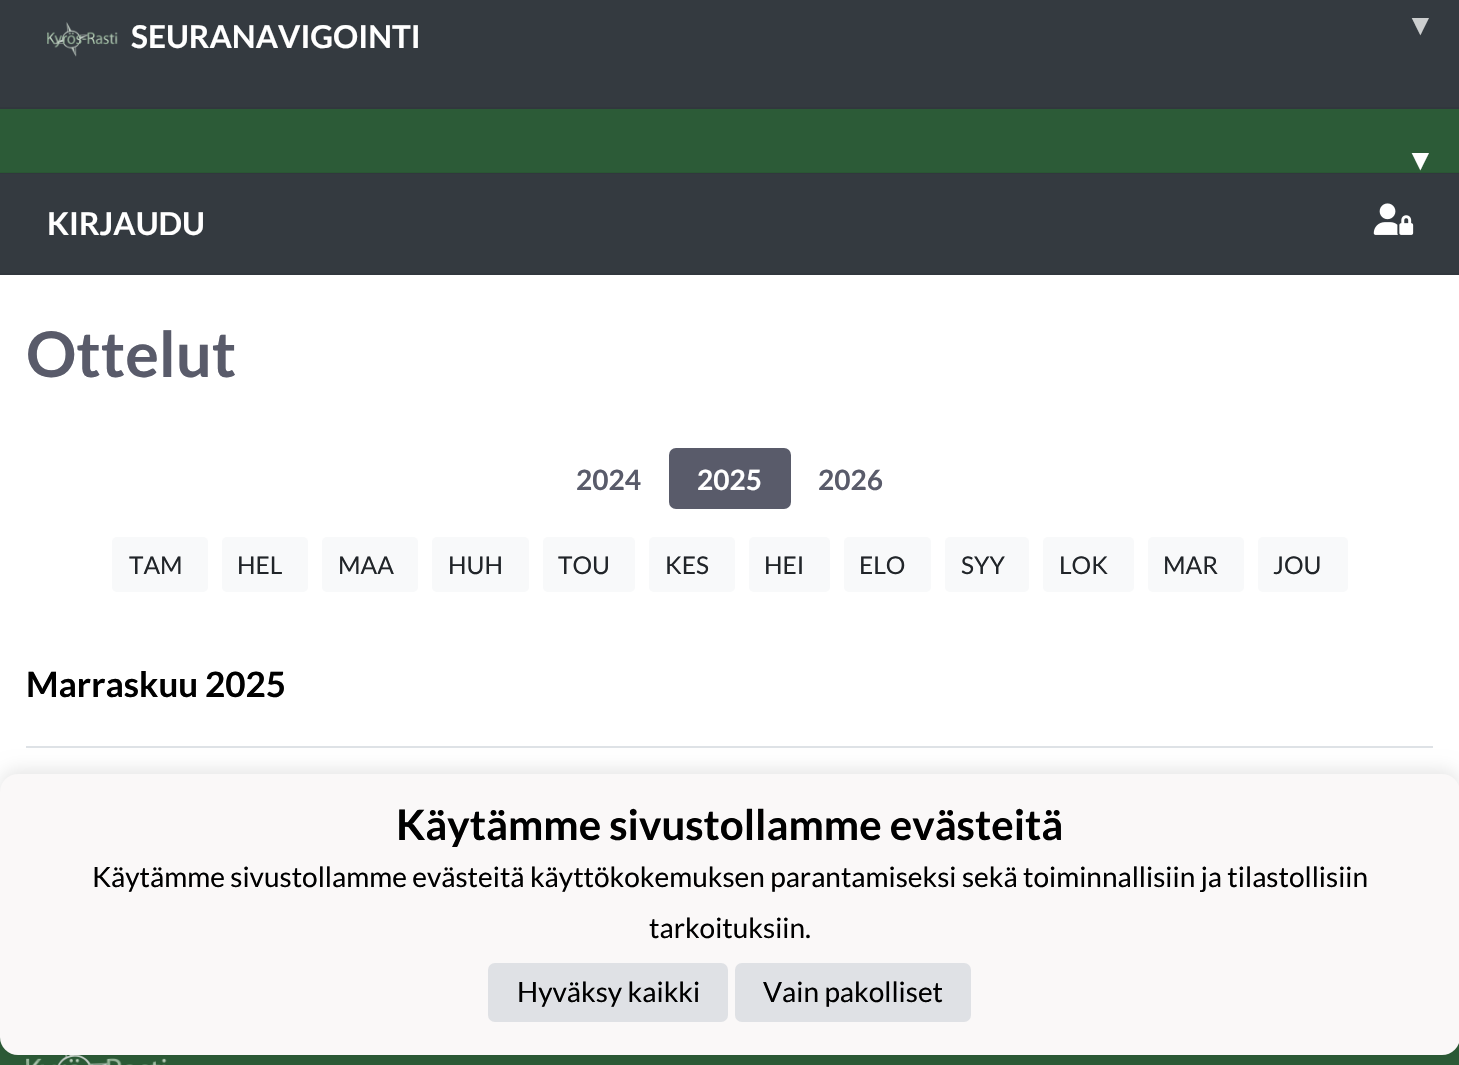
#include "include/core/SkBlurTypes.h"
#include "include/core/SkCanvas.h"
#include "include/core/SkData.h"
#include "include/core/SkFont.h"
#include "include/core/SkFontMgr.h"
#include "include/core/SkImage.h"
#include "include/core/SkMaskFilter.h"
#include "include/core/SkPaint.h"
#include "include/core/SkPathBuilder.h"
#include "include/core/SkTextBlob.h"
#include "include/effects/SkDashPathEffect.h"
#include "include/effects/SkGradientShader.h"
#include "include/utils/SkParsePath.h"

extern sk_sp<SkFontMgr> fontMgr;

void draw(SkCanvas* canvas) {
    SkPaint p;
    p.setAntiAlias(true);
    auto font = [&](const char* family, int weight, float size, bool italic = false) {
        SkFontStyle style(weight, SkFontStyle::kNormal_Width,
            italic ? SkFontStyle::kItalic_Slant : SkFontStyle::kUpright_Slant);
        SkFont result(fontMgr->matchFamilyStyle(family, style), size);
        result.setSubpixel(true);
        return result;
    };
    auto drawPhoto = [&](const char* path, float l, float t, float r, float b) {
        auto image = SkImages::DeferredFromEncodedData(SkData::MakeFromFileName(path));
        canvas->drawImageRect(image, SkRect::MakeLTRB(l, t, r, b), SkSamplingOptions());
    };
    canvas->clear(0xFFFFFFFF);
    p.setColor(0xFF343A40);
    canvas->drawRect(SkRect::MakeLTRB(0, 0, 1459, 107), p);
    p.setColor(0xFF31373D);
    canvas->drawRect(SkRect::MakeLTRB(0, 107, 1459, 109), p);
    drawPhoto("media/1.png", 47, 22, 118, 57);
    auto font1 = font("Lato", 700, 31.5f);
    p.setColor(0xFFFFFFFF);
    canvas->drawString("SEURANAVIGOINTI", 131, 48, font1, p);
    auto font2 = font("DejaVu Sans", 700, 31.5f);
    p.setColor(0xFFCCCECF);
    canvas->drawString("▾", 1412, 35, font2, p);
    p.setColor(0xFF2C5B37);
    canvas->drawRect(SkRect::MakeLTRB(0, 109, 1459, 172), p);
    p.setColor(0xFF2A5634);
    canvas->drawRect(SkRect::MakeLTRB(0, 172, 1459, 173), p);
    p.setColor(0xFFFFFFFF);
    canvas->drawString("▾", 1412, 170, font2, p);
    {
        const struct { float l, t, r, b; SkColor color; } items[] = {
            {0, 174, 1459, 273, 0xFF343A40},
            {0, 173, 1459, 174, 0xFF31373D},
            {0, 273, 1459, 275, 0xFF31373D},
        };
        for (auto [l, t, r, b, color] : items) {
            p.setColor(color);
            canvas->drawRect(SkRect::MakeLTRB(l, t, r, b), p);
        }
    }
    p.setColor(0xFFFFFFFF);
    canvas->drawString("KIRJAUDU", 47, 235, font1, p);
    drawPhoto("media/2.png", 1373, 203, 1414, 235);
    auto font3 = font("Lato", 700, 63);
    p.setColor(0xFF595B6A);
    canvas->drawString("Ottelut", 26, 377, font3, p);
    auto font4 = font("Lato", 700, 28);
    canvas->drawString("2024", 576, 490, font4, p);
    canvas->drawRoundRect(SkRect::MakeLTRB(669, 448, 791, 509), 7, 7, p);
    p.setColor(0xFFFFFFFF);
    canvas->drawString("2025", 697, 490, font4, p);
    p.setColor(0xFF595B6A);
    canvas->drawString("2026", 818, 490, font4, p);
    p.setColor(0xFFF8F9FA);
    canvas->drawRoundRect(SkRect::MakeLTRB(112, 537, 208, 592), 5, 5, p);
    auto font5 = font("Lato", 400, 24.5f);
    p.setColor(0xFF212529);
    canvas->drawString("TAM", 129, 574, font5, p);
    p.setColor(0xFFF8F9FA);
    canvas->drawRoundRect(SkRect::MakeLTRB(222, 537, 308, 592), 5, 5, p);
    p.setColor(0xFF212529);
    canvas->drawString("HEL", 237, 574, font5, p);
    p.setColor(0xFFF8F9FA);
    canvas->drawRoundRect(SkRect::MakeLTRB(322, 537, 418, 592), 5, 5, p);
    p.setColor(0xFF212529);
    canvas->drawString("MAA", 338, 574, font5, p);
    p.setColor(0xFFF8F9FA);
    canvas->drawRoundRect(SkRect::MakeLTRB(432, 537, 529, 592), 5, 5, p);
    p.setColor(0xFF212529);
    canvas->drawString("HUH", 448, 574, font5, p);
    p.setColor(0xFFF8F9FA);
    canvas->drawRoundRect(SkRect::MakeLTRB(543, 537, 635, 592), 5, 5, p);
    p.setColor(0xFF212529);
    canvas->drawString("TOU", 558, 574, font5, p);
    p.setColor(0xFFF8F9FA);
    canvas->drawRoundRect(SkRect::MakeLTRB(649, 537, 735, 592), 5, 5, p);
    p.setColor(0xFF212529);
    canvas->drawString("KES", 665, 574, font5, p);
    p.setColor(0xFFF8F9FA);
    canvas->drawRoundRect(SkRect::MakeLTRB(749, 537, 830, 592), 5, 5, p);
    p.setColor(0xFF212529);
    canvas->drawString("HEI", 764, 574, font5, p);
    p.setColor(0xFFF8F9FA);
    canvas->drawRoundRect(SkRect::MakeLTRB(844, 537, 931, 592), 5, 5, p);
    p.setColor(0xFF212529);
    canvas->drawString("ELO", 859, 574, font5, p);
    p.setColor(0xFFF8F9FA);
    canvas->drawRoundRect(SkRect::MakeLTRB(945, 537, 1029, 592), 5, 5, p);
    p.setColor(0xFF212529);
    canvas->drawString("SYY", 961, 574, font5, p);
    p.setColor(0xFFF8F9FA);
    canvas->drawRoundRect(SkRect::MakeLTRB(1043, 537, 1134, 592), 5, 5, p);
    p.setColor(0xFF212529);
    canvas->drawString("LOK", 1059, 574, font5, p);
    p.setColor(0xFFF8F9FA);
    canvas->drawRoundRect(SkRect::MakeLTRB(1148, 537, 1244, 592), 5, 5, p);
    p.setColor(0xFF212529);
    canvas->drawString("MAR", 1163, 574, font5, p);
    p.setColor(0xFFF8F9FA);
    canvas->drawRoundRect(SkRect::MakeLTRB(1258, 537, 1348, 592), 5, 5, p);
    p.setColor(0xFF212529);
    canvas->drawString("JOU", 1273, 574, font5, p);
    auto font6 = font("Lato", 700, 35);
    p.setColor(0xFF000000);
    canvas->drawString("Marraskuu 2025", 26, 697, font6, p);
    p.setColor(0xFFDEE2E6);
    canvas->drawRect(SkRect::MakeLTRB(26, 746, 1433, 748), p);
    p.setColor(0xFF2C5B37);
    canvas->drawRect(SkRect::MakeLTRB(0, 1037, 1459, 1065), p);
    drawPhoto("media/3.png", 26, 1055, 167, 1065);
    p.setColor(0x1A000000);
    p.setMaskFilter(SkMaskFilter::MakeBlur(kNormal_SkBlurStyle, 9));
    canvas->drawRoundRect(SkRect::MakeLTRB(0, 770, 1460, 1052), 18, 18, p);
    p.setMaskFilter(nullptr);
    p.setColor(0xFFFAF8F8);
    canvas->drawRoundRect(SkRect::MakeLTRB(0, 774, 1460, 1055), 18, 18, p);
    auto font7 = font("Lato", 700, 42);
    p.setColor(0xFF000000);
    canvas->drawString("Käytämme sivustollamme evästeitä", 396, 840, font7, p);
    auto font8 = font("Lato", 400, 28);
    canvas->drawString("Käytämme sivustollamme evästeitä käyttökokemuksen parantamiseksi sekä toiminnallisiin ja tilastollisiin", 92, 887, font8, p);
    canvas->drawString("tarkoituksiin.", 649, 938, font8, p);
    p.setColor(0xFFDFE1E5);
    canvas->drawRoundRect(SkRect::MakeLTRB(488, 963, 728, 1022), 7, 7, p);
    p.setColor(0xFF000000);
    canvas->drawString("Hyväksy kaikki", 517, 1002, font8, p);
    p.setColor(0xFFDFE1E5);
    canvas->drawRoundRect(SkRect::MakeLTRB(735, 963, 971, 1022), 7, 7, p);
    p.setColor(0xFF000000);
    canvas->drawString("Vain pakolliset", 763, 1002, font8, p);
}
